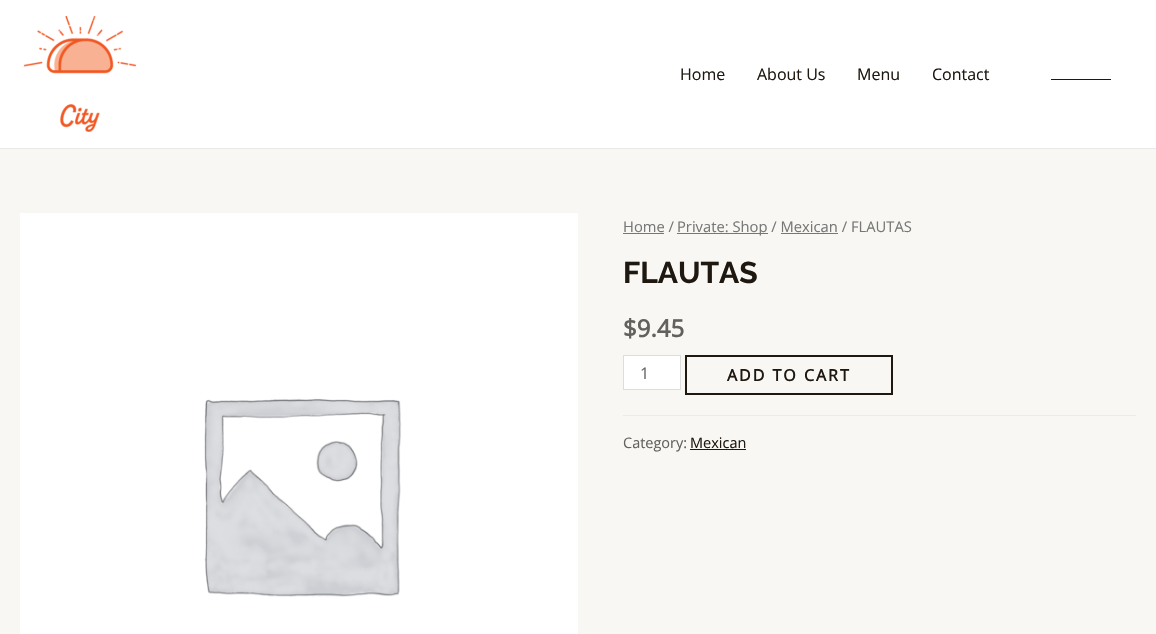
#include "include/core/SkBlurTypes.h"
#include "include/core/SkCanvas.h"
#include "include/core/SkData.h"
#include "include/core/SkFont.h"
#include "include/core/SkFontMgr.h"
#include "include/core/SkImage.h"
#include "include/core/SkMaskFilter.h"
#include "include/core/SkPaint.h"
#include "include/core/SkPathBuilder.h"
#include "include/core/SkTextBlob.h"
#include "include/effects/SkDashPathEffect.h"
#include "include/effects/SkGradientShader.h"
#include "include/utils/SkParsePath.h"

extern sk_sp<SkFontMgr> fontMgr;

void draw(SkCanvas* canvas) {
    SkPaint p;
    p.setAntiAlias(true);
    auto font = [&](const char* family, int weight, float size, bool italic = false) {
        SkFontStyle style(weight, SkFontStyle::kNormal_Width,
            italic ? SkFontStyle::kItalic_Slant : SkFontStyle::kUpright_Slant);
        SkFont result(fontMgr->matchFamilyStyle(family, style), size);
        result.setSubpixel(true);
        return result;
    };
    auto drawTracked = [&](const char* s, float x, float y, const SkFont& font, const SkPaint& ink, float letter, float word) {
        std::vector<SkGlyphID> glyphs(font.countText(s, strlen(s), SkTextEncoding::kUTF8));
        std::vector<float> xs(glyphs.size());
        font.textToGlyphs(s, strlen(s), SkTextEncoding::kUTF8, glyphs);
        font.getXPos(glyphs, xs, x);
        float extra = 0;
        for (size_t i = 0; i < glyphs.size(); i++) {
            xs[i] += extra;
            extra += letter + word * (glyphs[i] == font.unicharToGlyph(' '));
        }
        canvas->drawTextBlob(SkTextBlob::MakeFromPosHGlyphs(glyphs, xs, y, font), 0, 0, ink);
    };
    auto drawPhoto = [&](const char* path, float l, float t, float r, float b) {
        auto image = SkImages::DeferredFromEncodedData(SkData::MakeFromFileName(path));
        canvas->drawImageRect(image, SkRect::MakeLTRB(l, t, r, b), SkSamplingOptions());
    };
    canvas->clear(0xFFF8F7F3);
    p.setColor(0xFFFFFFFF);
    canvas->drawRect(SkRect::MakeLTRB(0, 0, 1156, 148), p);
    p.setColor(0xFFEAEAEA);
    canvas->drawRect(SkRect::MakeLTRB(0, 148, 1156, 149), p);
    drawPhoto("media/1.png", 23, 16, 137, 132);
    auto font1 = font("Open Sans", 400, 16);
    p.setColor(0xFF1E1810);
    {
        const struct { const char* s; float x, y; } items[] = {
            {"Home", 680, 80},
            {"About Us", 757, 80},
            {"Menu", 857, 80},
            {"Contact", 932, 80},
        };
        for (auto [s, x, y] : items) {
            canvas->drawString(s, x, y, font1, p);
        }
    }
    canvas->drawRect(SkRect::MakeLTRB(1051, 79, 1111, 80), p);
    drawPhoto("media/2.png", 20, 213, 578, 634);
    auto font2 = font("Open Sans", 400, 14.75f);
    p.setColor(0xFF777777);
    canvas->drawString("Home /", 623, 232, font2, p);
    canvas->drawRect(SkRect::MakeLTRB(623, 233, 664, 234), p);
    canvas->drawRect(SkRect::MakeLTRB(677, 233, 768, 234), p);
    canvas->drawString("Private: Shop / Mexican / FLAUTAS", 677, 232, font2, p);
    canvas->drawRect(SkRect::MakeLTRB(781, 233, 838, 234), p);
    auto font3 = font("Raleway", 100, 30);
    p.setColor(0xFF1E1810);
    canvas->drawString("FLAUTAS", 623, 283, font3, p);
    auto font4 = font("Open Sans", 700, 24);
    p.setColor(0xFF62615C);
    canvas->drawString("$9.45", 623, 337, font4, p);
    p.setColor(0xFFFFFFFF);
    canvas->drawRect(SkRect::MakeLTRB(623.5f, 355.5f, 680.5f, 389.5f), p);
    p.setStyle(SkPaint::kStroke_Style);
    p.setStrokeWidth(1);
    p.setColor(0xFFDDDDDD);
    canvas->drawRect(SkRect::MakeLTRB(623.5f, 355.5f, 680.5f, 389.5f), p);
    p.setStyle(SkPaint::kFill_Style);
    p.setColor(0xFF666666);
    canvas->drawString("1", 640, 379, font1, p);
    p.setStyle(SkPaint::kStroke_Style);
    p.setStrokeWidth(2);
    p.setColor(0xFF1E1810);
    canvas->drawRect(SkRect::MakeLTRB(686, 356, 892, 394), p);
    auto font5 = font("Open Sans", 700, 16);
    p.setStyle(SkPaint::kFill_Style);
    drawTracked("ADD TO CART", 727, 381, font5, p, 2, 0);
    p.setColor(0xFFEBEBEB);
    canvas->drawRect(SkRect::MakeLTRB(623, 415, 1136, 416), p);
    auto font6 = font("Open Sans", 400, 14.5f);
    p.setColor(0xFF62615C);
    canvas->drawString("Category:", 623, 448, font6, p);
    p.setColor(0xFF1E1810);
    canvas->drawString("Mexican", 690, 448, font6, p);
    canvas->drawRect(SkRect::MakeLTRB(690, 449, 746, 450), p);
}
